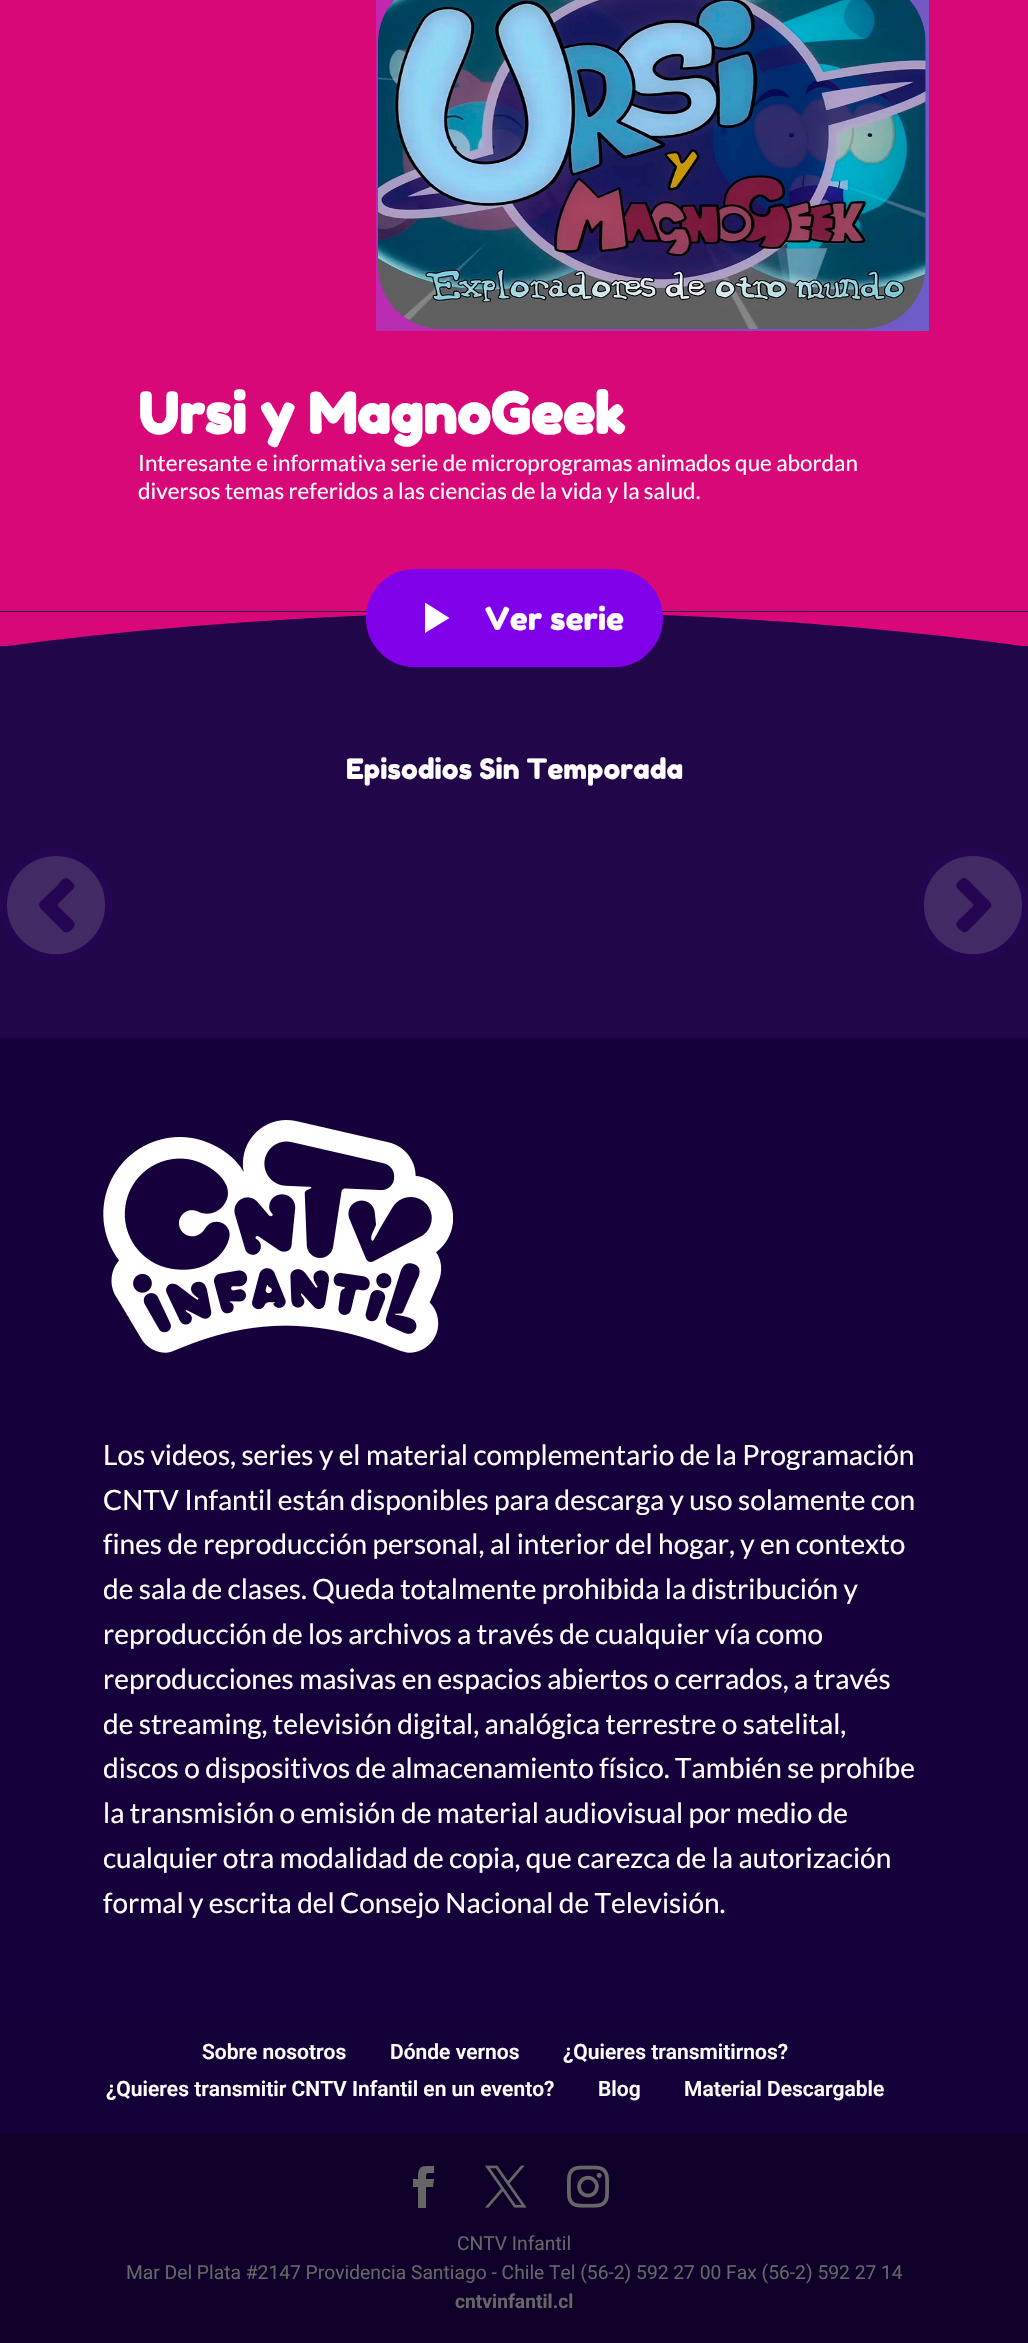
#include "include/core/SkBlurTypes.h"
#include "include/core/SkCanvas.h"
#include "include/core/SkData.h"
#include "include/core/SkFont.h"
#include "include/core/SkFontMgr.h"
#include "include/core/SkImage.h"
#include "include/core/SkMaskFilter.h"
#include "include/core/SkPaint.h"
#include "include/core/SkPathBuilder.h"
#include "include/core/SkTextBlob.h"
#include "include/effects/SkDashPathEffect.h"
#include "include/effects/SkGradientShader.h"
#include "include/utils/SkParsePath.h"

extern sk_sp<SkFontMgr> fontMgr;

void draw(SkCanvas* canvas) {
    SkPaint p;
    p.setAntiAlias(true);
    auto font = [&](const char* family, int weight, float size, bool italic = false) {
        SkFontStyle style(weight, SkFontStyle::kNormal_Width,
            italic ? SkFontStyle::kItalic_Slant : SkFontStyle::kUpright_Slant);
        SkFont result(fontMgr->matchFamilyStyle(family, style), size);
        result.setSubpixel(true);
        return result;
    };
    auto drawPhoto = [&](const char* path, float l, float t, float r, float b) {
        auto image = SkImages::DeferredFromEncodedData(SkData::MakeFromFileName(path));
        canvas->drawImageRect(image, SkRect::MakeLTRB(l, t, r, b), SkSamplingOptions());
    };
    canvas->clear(0xFF15003B);
    p.setColor(0xFFD90879);
    canvas->drawRect(SkRect::MakeLTRB(0, 0, 1028, 611), p);
    drawPhoto("media/1.png", 376, 0, 929, 331);
    auto font1 = font("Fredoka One", 700, 56);
    p.setColor(0xFFFFFFFF);
    canvas->drawString("Ursi y MagnoGeek", 138, 434, font1, p);
    auto font2 = font("Lato", 400, 22.4f);
    canvas->drawString("Interesante e informativa serie de microprogramas animados que abordan", 138, 471, font2, p);
    canvas->drawString("diversos temas referidos a las ciencias de la vida y la salud.", 138, 499, font2, p);
    p.setColor(0xFF21064A);
    canvas->drawRect(SkRect::MakeLTRB(0, 611, 1028, 1038), p);
    canvas->save();
    canvas->clipRect(SkRect::MakeLTRB(0, 611, 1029, 646));
    p.setColor(0xFFD90879);
    canvas->drawPath(SkPathBuilder().moveTo(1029, 612).lineTo(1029, 647).cubicTo(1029, 647, 799, 612, 514, 612).cubicTo(230, 613, 0, 647, 0, 647).lineTo(0, 612).close().detach(), p);
    canvas->restore();
    p.setColor(0xFF8100EA);
    canvas->drawRoundRect(SkRect::MakeLTRB(368, 571, 661, 665), 47, 47, p);
    p.setStyle(SkPaint::kStroke_Style);
    p.setStrokeWidth(4);
    canvas->drawRoundRect(SkRect::MakeLTRB(368, 571, 661, 665), 47, 47, p);
    p.setStyle(SkPaint::kFill_Style);
    p.setColor(0xFFFFFFFF);
    canvas->drawPath(SkPathBuilder().moveTo(425, 602.5f).lineTo(425, 633).lineTo(449.5f, 618).close().detach(), p);
    auto font3 = font("Fredoka One", 400, 31.5f);
    canvas->drawString("Ver serie", 485, 630, font3, p);
    auto font4 = font("Fredoka One", 400, 28);
    canvas->drawString("Episodios Sin Temporada", 346, 779, font4, p);
    p.setColor(0xFF422B65);
    canvas->drawCircle(56, 905, 52.5f, p);
    p.setStyle(SkPaint::kStroke_Style);
    p.setStrokeWidth(7);
    p.setColor(0xFF240552);
    canvas->drawCircle(56, 905, 52.5f, p);
    p.setStyle(SkPaint::kFill_Style);
    canvas->drawPath(SkPathBuilder().moveTo(40, 902).lineTo(56, 887).cubicTo(63, 879, 65, 874, 72, 882).cubicTo(77, 887, 73, 889, 68, 894).lineTo(57, 905).lineTo(68, 916).cubicTo(70, 918, 77, 923, 74, 927).cubicTo(66, 937, 64, 932, 56, 924).lineTo(44, 912).cubicTo(42, 910, 37, 906, 40, 902).close().detach(), p);
    p.setColor(0xFF422B65);
    canvas->drawCircle(973, 905, 52.5f, p);
    p.setStyle(SkPaint::kStroke_Style);
    p.setColor(0xFF240552);
    canvas->drawCircle(973, 905, 52.5f, p);
    p.setStyle(SkPaint::kFill_Style);
    canvas->drawPath(SkPathBuilder().moveTo(990, 908).lineTo(975, 924).cubicTo(967, 931, 966, 936, 959, 929).cubicTo(953, 923, 958, 921, 963, 916).lineTo(974, 905).lineTo(963, 894).cubicTo(961, 892, 954, 887, 957, 883).cubicTo(965, 874, 966, 878, 975, 887).lineTo(986, 898).cubicTo(989, 901, 994, 904, 990, 908).close().detach(), p);
    drawPhoto("media/2.png", 103, 1120, 453, 1353);
    auto font5 = font("Lato", 400, 28);
    p.setColor(0xFFFFFFFF);
    {
        const struct { const char* s; float x, y; } items[] = {
            {"Los videos, series y el material complementario de la Programación", 103, 1465},
            {"CNTV Infantil están disponibles para descarga y uso solamente con", 103, 1510},
            {"fines de reproducción personal, al interior del hogar, y en contexto", 103, 1554},
            {"de sala de clases. Queda totalmente prohibida la distribución y", 103, 1599},
            {"reproducción de los archivos a través de cualquier vía como", 103, 1644},
            {"reproducciones masivas en espacios abiertos o cerrados, a través", 103, 1689},
            {"de streaming, televisión digital, analógica terrestre o satelital,", 103, 1734},
            {"discos o dispositivos de almacenamiento físico. También se prohíbe", 103, 1778},
            {"la transmisión o emisión de material audiovisual por medio de", 103, 1823},
            {"cualquier otra modalidad de copia, que carezca de la autorización", 103, 1868},
            {"formal y escrita del Consejo Nacional de Televisión.", 103, 1913},
        };
        for (auto [s, x, y] : items) {
            canvas->drawString(s, x, y, font5, p);
        }
    }
    p.setColor(0xFF140038);
    canvas->drawRect(SkRect::MakeLTRB(0, 2007, 1028, 2133), p);
    auto font6 = font("Roboto", 600, 21);
    p.setColor(0xFFFFFFFF);
    {
        const struct { const char* s; float x, y; } items[] = {
            {"Sobre nosotros", 202, 2059},
            {"Dónde vernos", 390, 2059},
            {"¿Quieres transmitirnos?", 563, 2059},
            {"¿Quieres transmitir CNTV Infantil en un evento?", 106, 2096},
            {"Blog", 598, 2096},
            {"Material Descargable", 684, 2096},
        };
        for (auto [s, x, y] : items) {
            canvas->drawString(s, x, y, font6, p);
        }
    }
    p.setColor(0xFF0E0028);
    canvas->drawRect(SkRect::MakeLTRB(0, 2133, 1028, 2343), p);
    p.setColor(0xFF666666);
    canvas->drawPath(SkPathBuilder().moveTo(418, 2208).lineTo(426, 2208).lineTo(426, 2187).lineTo(433, 2187).lineTo(434, 2179).lineTo(426, 2179).cubicTo(426, 2172, 426, 2173, 434, 2173).lineTo(434, 2166).cubicTo(421, 2166, 418, 2165, 418, 2179).lineTo(413, 2179).lineTo(413, 2187).lineTo(418, 2187).close().detach(), p);
    drawPhoto("media/3.png", 485, 2165, 527, 2208);
    drawPhoto("media/4.png", 567, 2165, 609, 2208);
    auto font7 = font("Roboto", 400, 19.25f);
    canvas->drawString("CNTV Infantil", 457, 2250, font7, p);
    canvas->drawString("Mar Del Plata #2147 Providencia Santiago - Chile Tel (56-2) 592 27 00 Fax (56-2) 592 27 14", 126, 2279, font7, p);
    auto font8 = font("Roboto", 700, 19.25f);
    canvas->drawString("cntvinfantil.cl", 455, 2308, font8, p);
}
